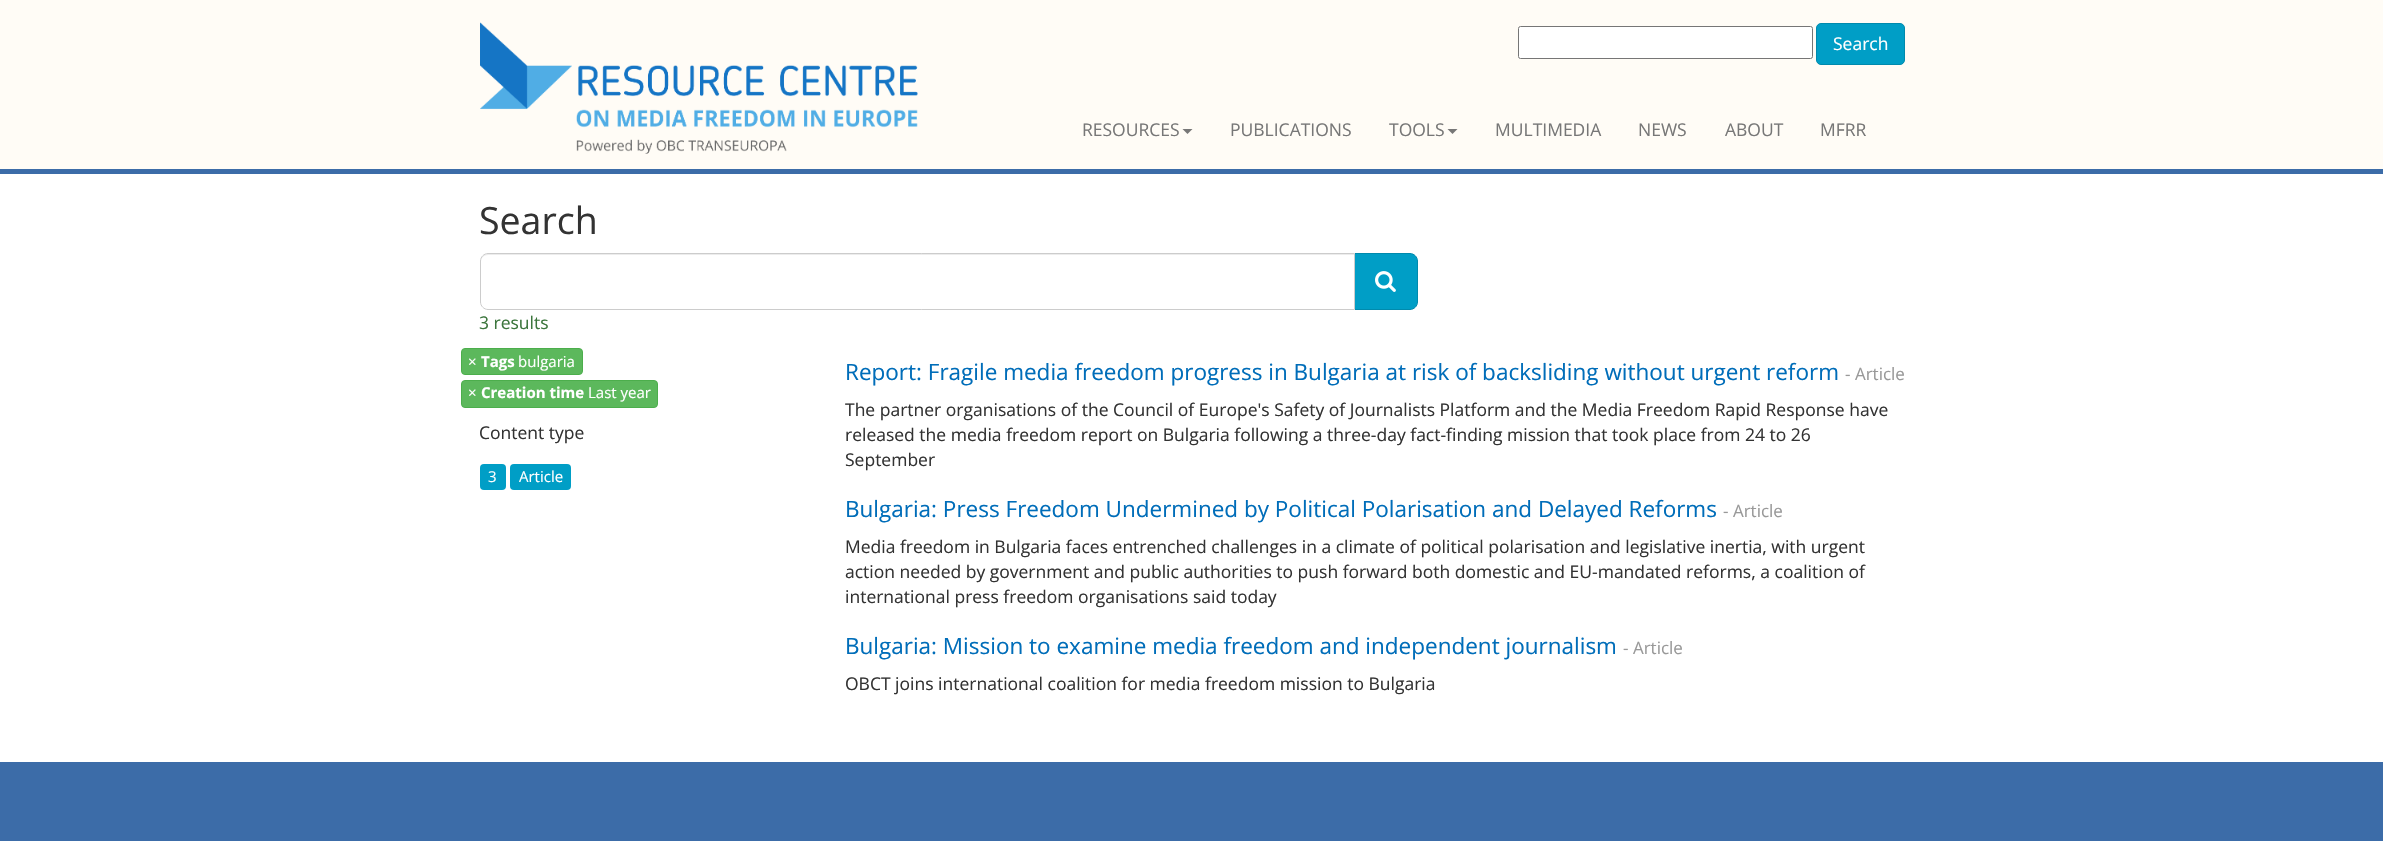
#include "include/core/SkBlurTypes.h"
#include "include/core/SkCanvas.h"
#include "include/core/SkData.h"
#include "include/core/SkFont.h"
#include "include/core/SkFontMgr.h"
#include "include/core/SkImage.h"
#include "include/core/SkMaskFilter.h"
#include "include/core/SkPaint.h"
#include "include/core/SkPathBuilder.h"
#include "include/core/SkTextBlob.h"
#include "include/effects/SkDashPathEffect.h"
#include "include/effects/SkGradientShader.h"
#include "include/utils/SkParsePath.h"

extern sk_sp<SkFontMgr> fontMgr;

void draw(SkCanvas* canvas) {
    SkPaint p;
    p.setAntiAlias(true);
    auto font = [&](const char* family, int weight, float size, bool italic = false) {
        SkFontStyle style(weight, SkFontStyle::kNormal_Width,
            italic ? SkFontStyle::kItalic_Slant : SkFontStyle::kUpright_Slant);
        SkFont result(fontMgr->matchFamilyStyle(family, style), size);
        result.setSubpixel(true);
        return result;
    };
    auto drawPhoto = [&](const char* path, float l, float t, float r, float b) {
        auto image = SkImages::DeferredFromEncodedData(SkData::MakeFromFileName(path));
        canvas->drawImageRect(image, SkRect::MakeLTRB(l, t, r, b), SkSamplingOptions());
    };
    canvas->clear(0xFFFFFFFF);
    p.setColor(0xFFFFFCF6);
    canvas->drawRect(SkRect::MakeLTRB(0, 0, 2383, 169), p);
    p.setColor(0xFF3C6CA8);
    canvas->drawRect(SkRect::MakeLTRB(0, 169, 2383, 174), p);
    drawPhoto("media/1.png", 480, 22, 918, 154);
    p.setColor(0xFFFFFFFF);
    canvas->drawRoundRect(SkRect::MakeLTRB(1518.5f, 26.5f, 1812.5f, 58.5f), 2, 2, p);
    p.setStyle(SkPaint::kStroke_Style);
    p.setStrokeWidth(1);
    p.setColor(0xFF767676);
    canvas->drawRoundRect(SkRect::MakeLTRB(1518.5f, 26.5f, 1812.5f, 58.5f), 2, 2, p);
    p.setStyle(SkPaint::kFill_Style);
    p.setColor(0xFF009EC6);
    canvas->drawRoundRect(SkRect::MakeLTRB(1816.5f, 23.5f, 1904.5f, 64.5f), 4.5f, 4.5f, p);
    p.setStyle(SkPaint::kStroke_Style);
    p.setColor(0xFF008AAD);
    canvas->drawRoundRect(SkRect::MakeLTRB(1816.5f, 23.5f, 1904.5f, 64.5f), 4.5f, 4.5f, p);
    auto font1 = font("Open Sans", 400, 17.5f);
    p.setStyle(SkPaint::kFill_Style);
    p.setColor(0xFFFFFFFF);
    canvas->drawString("Search", 1833, 50, font1, p);
    p.setColor(0xFF777777);
    canvas->drawString("RESOURCES", 1082, 136, font1, p);
    canvas->drawPath(SkPathBuilder().moveTo(1182.5f, 129).lineTo(1192.5f, 129).lineTo(1187.5f, 134).close().detach(), p);
    canvas->drawString("PUBLICATIONS", 1230, 136, font1, p);
    canvas->drawString("TOOLS", 1389, 136, font1, p);
    canvas->drawPath(SkPathBuilder().moveTo(1447.5f, 129).lineTo(1457.5f, 129).lineTo(1452.5f, 134).close().detach(), p);
    {
        const struct { const char* s; float x, y; } items[] = {
            {"MULTIMEDIA", 1495, 136},
            {"NEWS", 1638, 136},
            {"ABOUT", 1725, 136},
            {"MFRR", 1820, 136},
        };
        for (auto [s, x, y] : items) {
            canvas->drawString(s, x, y, font1, p);
        }
    }
    auto font2 = font("Open Sans", 400, 37.5f);
    p.setColor(0xFF333333);
    canvas->drawString("Search", 479, 234, font2, p);
    p.setColor(0xFF009EC6);
    canvas->drawPath(SkPathBuilder().moveTo(1354.5f, 253.5f).lineTo(1410, 253.5f).cubicTo(1414, 253.5f, 1417.5f, 257, 1417.5f, 261).lineTo(1417.5f, 302).cubicTo(1417.5f, 306, 1414, 309.5f, 1410, 309.5f).lineTo(1354.5f, 309.5f).close().detach(), p);
    p.setStyle(SkPaint::kStroke_Style);
    p.setColor(0xFF008AAD);
    canvas->drawPath(SkPathBuilder().moveTo(1354.5f, 253.5f).lineTo(1410, 253.5f).cubicTo(1414, 253.5f, 1417.5f, 257, 1417.5f, 261).lineTo(1417.5f, 302).cubicTo(1417.5f, 306, 1414, 309.5f, 1410, 309.5f).lineTo(1354.5f, 309.5f).close().detach(), p);
    p.setStyle(SkPaint::kFill_Style);
    p.setColor(0xFFFFFFFF);
    canvas->drawPath(SkPathBuilder().moveTo(488, 253).lineTo(1355, 253).lineTo(1355, 310).lineTo(488, 310).cubicTo(483.5f, 310, 480, 306.5f, 480, 302).lineTo(480, 261).cubicTo(480, 256.5f, 483.5f, 253, 488, 253).close().detach(), p);
    p.setColor(0xFFECECEC);
    canvas->drawPath(SkPathBuilder().moveTo(488, 255).lineTo(1354, 255).lineTo(1354, 254).lineTo(487, 254).cubicTo(484, 254, 481, 257, 481, 260).lineTo(481, 261).cubicTo(481, 258, 484, 255, 488, 255).close().detach(), p);
    p.setStyle(SkPaint::kStroke_Style);
    p.setColor(0xFFCCCCCC);
    canvas->drawPath(SkPathBuilder().moveTo(488, 253.5f).lineTo(1354.5f, 253.5f).lineTo(1354.5f, 309.5f).lineTo(488, 309.5f).cubicTo(484, 309.5f, 480.5f, 306, 480.5f, 302).lineTo(480.5f, 261).cubicTo(480.5f, 257, 484, 253.5f, 488, 253.5f).close().detach(), p);
    drawPhoto("media/2.png", 1375, 271, 1396, 292);
    p.setStyle(SkPaint::kFill_Style);
    p.setColor(0xFF3C763D);
    canvas->drawString("3 results", 479, 329, font1, p);
    p.setColor(0xFF5CB85C);
    canvas->drawRoundRect(SkRect::MakeLTRB(461.5f, 348.5f, 582.5f, 374.5f), 3.5f, 3.5f, p);
    p.setStyle(SkPaint::kStroke_Style);
    p.setColor(0xFF4CAE4C);
    canvas->drawRoundRect(SkRect::MakeLTRB(461.5f, 348.5f, 582.5f, 374.5f), 3.5f, 3.5f, p);
    auto font3 = font("Open Sans", 400, 15);
    p.setStyle(SkPaint::kFill_Style);
    p.setColor(0xFFFFFFFF);
    canvas->drawString("×", 468, 367, font3, p);
    auto font4 = font("Open Sans", 700, 15);
    canvas->drawString("Tags", 481, 367, font4, p);
    canvas->drawString("bulgaria", 518, 367, font3, p);
    p.setColor(0xFF5CB85C);
    canvas->drawRoundRect(SkRect::MakeLTRB(461.5f, 380.5f, 657.5f, 407.5f), 3.5f, 3.5f, p);
    p.setStyle(SkPaint::kStroke_Style);
    p.setColor(0xFF4CAE4C);
    canvas->drawRoundRect(SkRect::MakeLTRB(461.5f, 380.5f, 657.5f, 407.5f), 3.5f, 3.5f, p);
    p.setStyle(SkPaint::kFill_Style);
    p.setColor(0xFFFFFFFF);
    canvas->drawString("×", 468, 398, font3, p);
    canvas->drawString("Creation time", 481, 398, font4, p);
    canvas->drawString("Last year", 588, 398, font3, p);
    p.setColor(0xFF333333);
    canvas->drawString("Content type", 479, 439, font1, p);
    p.setColor(0xFF009EC6);
    canvas->drawRoundRect(SkRect::MakeLTRB(480, 464, 506, 490), 4, 4, p);
    p.setColor(0xFFFFFFFF);
    canvas->drawString("3", 488, 482, font3, p);
    p.setColor(0xFF009EC6);
    canvas->drawRoundRect(SkRect::MakeLTRB(510, 464, 571, 490), 4, 4, p);
    p.setColor(0xFFFFFFFF);
    canvas->drawString("Article", 519, 482, font3, p);
    auto font5 = font("Open Sans", 400, 22.5f);
    p.setColor(0xFF006DB9);
    canvas->drawString("Report: Fragile media freedom progress in Bulgaria at risk of backsliding without urgent reform", 845, 380, font5, p);
    auto font6 = font("Open Sans", 400, 17);
    p.setColor(0xFF999999);
    canvas->drawString("- Article", 1845, 380, font6, p);
    p.setColor(0xFF333333);
    {
        const struct { const char* s; float x, y; } items[] = {
            {"The partner organisations of the Council of Europe's Safety of Journalists Platform and the Media Freedom Rapid Response have", 845, 416},
            {"released the media freedom report on Bulgaria following a three-day fact-finding mission that took place from 24 to 26", 845, 441},
            {"September", 845, 466},
        };
        for (auto [s, x, y] : items) {
            canvas->drawString(s, x, y, font1, p);
        }
    }
    p.setColor(0xFF006DB9);
    canvas->drawString("Bulgaria: Press Freedom Undermined by Political Polarisation and Delayed Reforms", 845, 517, font5, p);
    p.setColor(0xFF999999);
    canvas->drawString("- Article", 1723, 517, font6, p);
    p.setColor(0xFF333333);
    {
        const struct { const char* s; float x, y; } items[] = {
            {"Media freedom in Bulgaria faces entrenched challenges in a climate of political polarisation and legislative inertia, with urgent", 845, 553},
            {"action needed by government and public authorities to push forward both domestic and EU-mandated reforms, a coalition of", 845, 578},
            {"international press freedom organisations said today", 845, 603},
        };
        for (auto [s, x, y] : items) {
            canvas->drawString(s, x, y, font1, p);
        }
    }
    p.setColor(0xFF006DB9);
    canvas->drawString("Bulgaria: Mission to examine media freedom and independent journalism", 845, 654, font5, p);
    p.setColor(0xFF999999);
    canvas->drawString("- Article", 1623, 654, font6, p);
    p.setColor(0xFF333333);
    canvas->drawString("OBCT joins international coalition for media freedom mission to Bulgaria", 845, 690, font1, p);
    p.setColor(0xFF3C6CA8);
    canvas->drawRect(SkRect::MakeLTRB(0, 762, 2383, 841), p);
}
